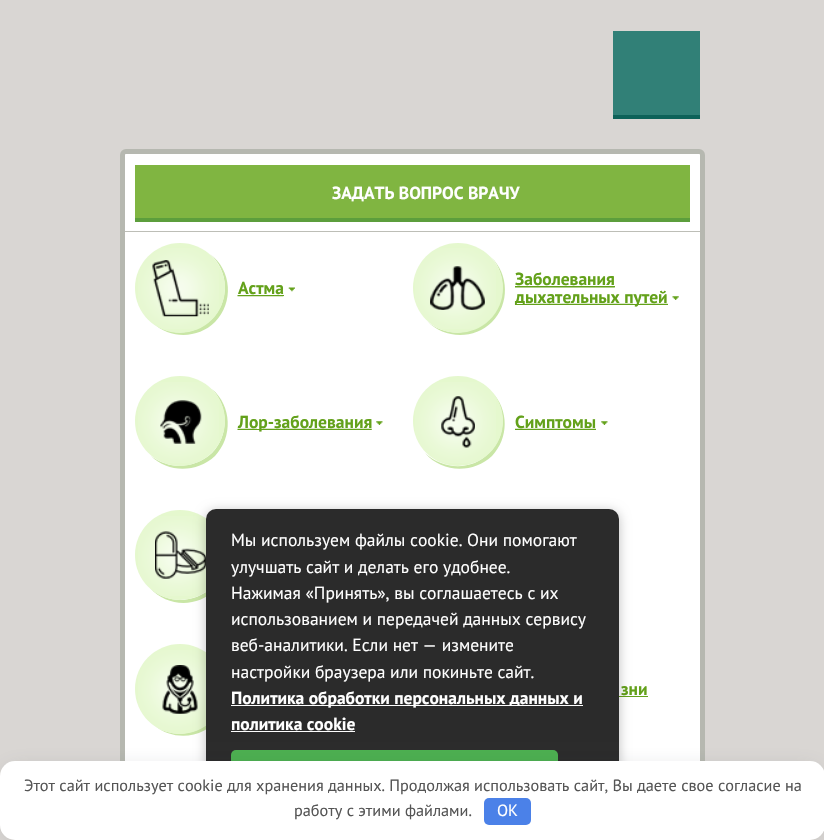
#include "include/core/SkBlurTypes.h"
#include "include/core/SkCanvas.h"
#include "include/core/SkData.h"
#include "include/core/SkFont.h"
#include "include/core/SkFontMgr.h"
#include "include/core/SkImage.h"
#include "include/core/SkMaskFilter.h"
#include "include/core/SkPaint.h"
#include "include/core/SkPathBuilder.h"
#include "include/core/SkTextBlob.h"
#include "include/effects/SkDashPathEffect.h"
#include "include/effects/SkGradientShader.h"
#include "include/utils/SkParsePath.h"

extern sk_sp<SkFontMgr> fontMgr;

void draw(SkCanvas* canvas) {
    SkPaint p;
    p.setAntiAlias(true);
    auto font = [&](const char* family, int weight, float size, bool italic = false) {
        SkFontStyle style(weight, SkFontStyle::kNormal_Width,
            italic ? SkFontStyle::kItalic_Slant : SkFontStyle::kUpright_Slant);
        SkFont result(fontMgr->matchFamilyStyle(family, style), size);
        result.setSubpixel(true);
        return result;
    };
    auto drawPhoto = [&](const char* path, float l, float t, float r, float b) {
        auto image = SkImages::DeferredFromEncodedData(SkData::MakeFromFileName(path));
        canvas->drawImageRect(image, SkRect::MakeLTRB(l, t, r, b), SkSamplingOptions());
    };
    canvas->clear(0xFFD9D6D3);
    p.setColor(0xFF318077);
    canvas->drawRect(SkRect::MakeLTRB(613, 31, 700, 115), p);
    p.setColor(0xFF0E6259);
    canvas->drawRect(SkRect::MakeLTRB(613, 115, 700, 119), p);
    p.setStyle(SkPaint::kStroke_Style);
    p.setStrokeWidth(5);
    p.setColor(0xFFB6B8B0);
    canvas->drawRoundRect(SkRect::MakeLTRB(122.5f, 151.5f, 702.5f, 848.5f), 3.5f, 3.5f, p);
    p.setStyle(SkPaint::kFill_Style);
    p.setColor(0xFFFFFFFF);
    canvas->drawRoundRect(SkRect::MakeLTRB(125, 154, 700, 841), 1, 1, p);
    p.setColor(0xFF80B541);
    canvas->drawRect(SkRect::MakeLTRB(135, 165, 690, 218), p);
    p.setColor(0xFF5C9E3C);
    canvas->drawRect(SkRect::MakeLTRB(135, 218, 690, 222), p);
    auto font1 = font("PT Sans", 700, 17.5f);
    p.setColor(0xFFFFFFFF);
    canvas->drawString("ЗАДАТЬ ВОПРОС ВРАЧУ", 332, 199, font1, p);
    p.setColor(0xFFBDBEB7);
    canvas->drawRect(SkRect::MakeLTRB(125, 231, 700, 232), p);
    p.setColor(0xFFC9E6A6);
    canvas->drawPath(SkPathBuilder().moveTo(153, 323).cubicTo(170, 339, 198, 339, 215, 322).cubicTo(234, 303, 232, 270, 210, 254).cubicTo(229, 271, 230, 301, 212, 319).cubicTo(196, 335, 170, 337, 153, 323).close().detach(), p);
    p.setColor(0xFFE5F8CE);
    canvas->drawCircle(180, 288, 45, p);
    drawPhoto("media/1.png", 138, 248, 219, 329);
    drawPhoto("media/2.png", 152, 260, 209, 317);
    drawPhoto("media/3.png", 237, 287, 295, 297);
    p.setColor(0xFF63A11A);
    canvas->drawString("Астма", 238, 294, font1, p);
    canvas->drawRect(SkRect::MakeLTRB(283, 295, 284, 296), p);
    p.setColor(0xFFC9E6A6);
    canvas->drawPath(SkPathBuilder().moveTo(427, 321).cubicTo(444, 339, 474, 340, 492, 322).cubicTo(510, 304, 509, 274, 491, 257).cubicTo(507, 274, 506, 302, 489, 319).cubicTo(472, 336, 444, 337, 427, 321).close().detach(), p);
    p.setColor(0xFFE5F8CE);
    canvas->drawCircle(458, 288, 45, p);
    drawPhoto("media/4.png", 415, 248, 496, 329);
    drawPhoto("media/5.png", 430, 266, 485, 310);
    p.setColor(0xFF63A11A);
    canvas->drawString("Заболевания", 515, 285, font1, p);
    canvas->drawRect(SkRect::MakeLTRB(515, 286, 615, 287), p);
    drawPhoto("media/6.png", 515, 287, 679, 304);
    canvas->drawRect(SkRect::MakeLTRB(515, 304, 668, 305), p);
    canvas->drawString("дыхательных путей", 515, 303, font1, p);
    p.setColor(0xFFC9E6A6);
    canvas->drawPath(SkPathBuilder().moveTo(151, 456).cubicTo(168, 473, 197, 473, 215, 456).cubicTo(233, 437, 232, 406, 212, 389).cubicTo(229, 407, 229, 436, 212, 453).cubicTo(195, 469, 169, 470, 151, 456).close().detach(), p);
    p.setColor(0xFFE5F8CE);
    canvas->drawCircle(180, 421, 45, p);
    drawPhoto("media/7.png", 138, 382, 219, 463);
    drawPhoto("media/8.png", 160, 400, 202, 444);
    drawPhoto("media/9.png", 237, 421, 383, 430);
    p.setColor(0xFF63A11A);
    canvas->drawRect(SkRect::MakeLTRB(257, 429, 263, 430), p);
    canvas->drawString("Лор-заболевания", 238, 428, font1, p);
    p.setColor(0xFFC9E6A6);
    canvas->drawPath(SkPathBuilder().moveTo(425, 453).cubicTo(442, 473, 473, 474, 492, 456).cubicTo(509, 438, 509, 410, 492, 392).cubicTo(507, 410, 506, 437, 489, 453).cubicTo(472, 471, 443, 470, 425, 453).close().detach(), p);
    p.setColor(0xFFE5F8CE);
    canvas->drawCircle(458, 421, 45, p);
    drawPhoto("media/10.png", 415, 382, 496, 463);
    drawPhoto("media/11.png", 441, 396, 475, 448);
    drawPhoto("media/12.png", 515, 421, 608, 429);
    p.setColor(0xFF63A11A);
    canvas->drawString("Симптомы", 515, 428, font1, p);
    canvas->drawRect(SkRect::MakeLTRB(515, 429, 596, 430), p);
    p.setColor(0xFFC9E6A6);
    canvas->drawPath(SkPathBuilder().moveTo(150, 588).cubicTo(167, 607, 197, 608, 215, 590).cubicTo(233, 572, 232, 542, 213, 525).cubicTo(229, 542, 229, 570, 212, 587).cubicTo(195, 604, 167, 604, 150, 588).close().detach(), p);
    p.setColor(0xFFE5F8CE);
    canvas->drawCircle(180, 555, 45, p);
    drawPhoto("media/13.png", 138, 516, 206, 596);
    drawPhoto("media/14.png", 155, 531, 206, 579);
    p.setColor(0xFFC9E6A6);
    canvas->drawPath(SkPathBuilder().moveTo(155, 726).cubicTo(175, 742, 206, 738, 220, 716).cubicTo(234, 696, 229, 668, 208, 654).cubicTo(226, 668, 230, 695, 217, 714).cubicTo(203, 734, 175, 740, 155, 726).close().detach(), p);
    p.setColor(0xFFE5F8CE);
    canvas->drawCircle(180, 689, 45, p);
    drawPhoto("media/15.png", 138, 650, 206, 730);
    drawPhoto("media/16.png", 162, 665, 198, 714);
    p.setColor(0xFF63A11A);
    canvas->drawString("зни", 621, 695, font1, p);
    canvas->drawRect(SkRect::MakeLTRB(619, 696, 648, 697), p);
    p.setColor(0x40000000);
    p.setMaskFilter(SkMaskFilter::MakeBlur(kNormal_SkBlurStyle, 6));
    canvas->drawRoundRect(SkRect::MakeLTRB(206, 511, 619, 818), 10, 10, p);
    p.setMaskFilter(nullptr);
    p.setColor(0xFF2B2B2B);
    canvas->drawRoundRect(SkRect::MakeLTRB(206, 509, 619, 815), 10, 10, p);
    auto font2 = font("PT Sans", 400, 17.5f);
    p.setColor(0xFFFFFFFF);
    {
        const struct { const char* s; float x, y; } items[] = {
            {"Мы используем файлы cookie. Они помогают", 231, 546},
            {"улучшать сайт и делать его удобнее.", 231, 573},
            {"Нажимая «Принять», вы соглашаетесь с их", 231, 599},
            {"использованием и передачей данных сервису", 231, 625},
            {"веб-аналитики. Если нет — измените", 231, 651},
            {"настройки браузера или покиньте сайт.", 231, 678},
        };
        for (auto [s, x, y] : items) {
            canvas->drawString(s, x, y, font2, p);
        }
    }
    p.setColor(0xFFFEFEFE);
    canvas->drawRect(SkRect::MakeLTRB(231, 705, 583, 706), p);
    p.setColor(0xFFFFFFFF);
    canvas->drawString("Политика обработки персональных данных и", 231, 704, font1, p);
    canvas->drawString("политика cookie", 231, 730, font1, p);
    p.setColor(0xFFFEFEFE);
    canvas->drawRect(SkRect::MakeLTRB(231, 731, 355, 732), p);
    p.setColor(0xFF4CAF50);
    canvas->drawRoundRect(SkRect::MakeLTRB(231, 750, 558, 796), 5, 5, p);
    p.setColor(0x33292C38);
    p.setMaskFilter(SkMaskFilter::MakeBlur(kNormal_SkBlurStyle, 12.5f));
    canvas->drawRoundRect(SkRect::MakeLTRB(6, 771, 819, 838), 9, 9, p);
    p.setMaskFilter(nullptr);
    p.setColor(0xFFFFFFFF);
    canvas->drawRoundRect(SkRect::MakeLTRB(0, 761, 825, 840), 15, 15, p);
    auto font3 = font("PT Sans", 400, 16.25f);
    p.setColor(0xFF555555);
    canvas->drawString("Этот сайт использует cookie для хранения данных. Продолжая использовать сайт, Вы даете свое согласие на", 24, 791, font3, p);
    canvas->drawString("работу с этими файлами.", 294, 816, font3, p);
    p.setColor(0xFF4B81E8);
    canvas->drawRoundRect(SkRect::MakeLTRB(484, 798, 531, 825), 5, 5, p);
    p.setColor(0xFFFFFFFF);
    canvas->drawString("OK", 497, 816, font3, p);
}
